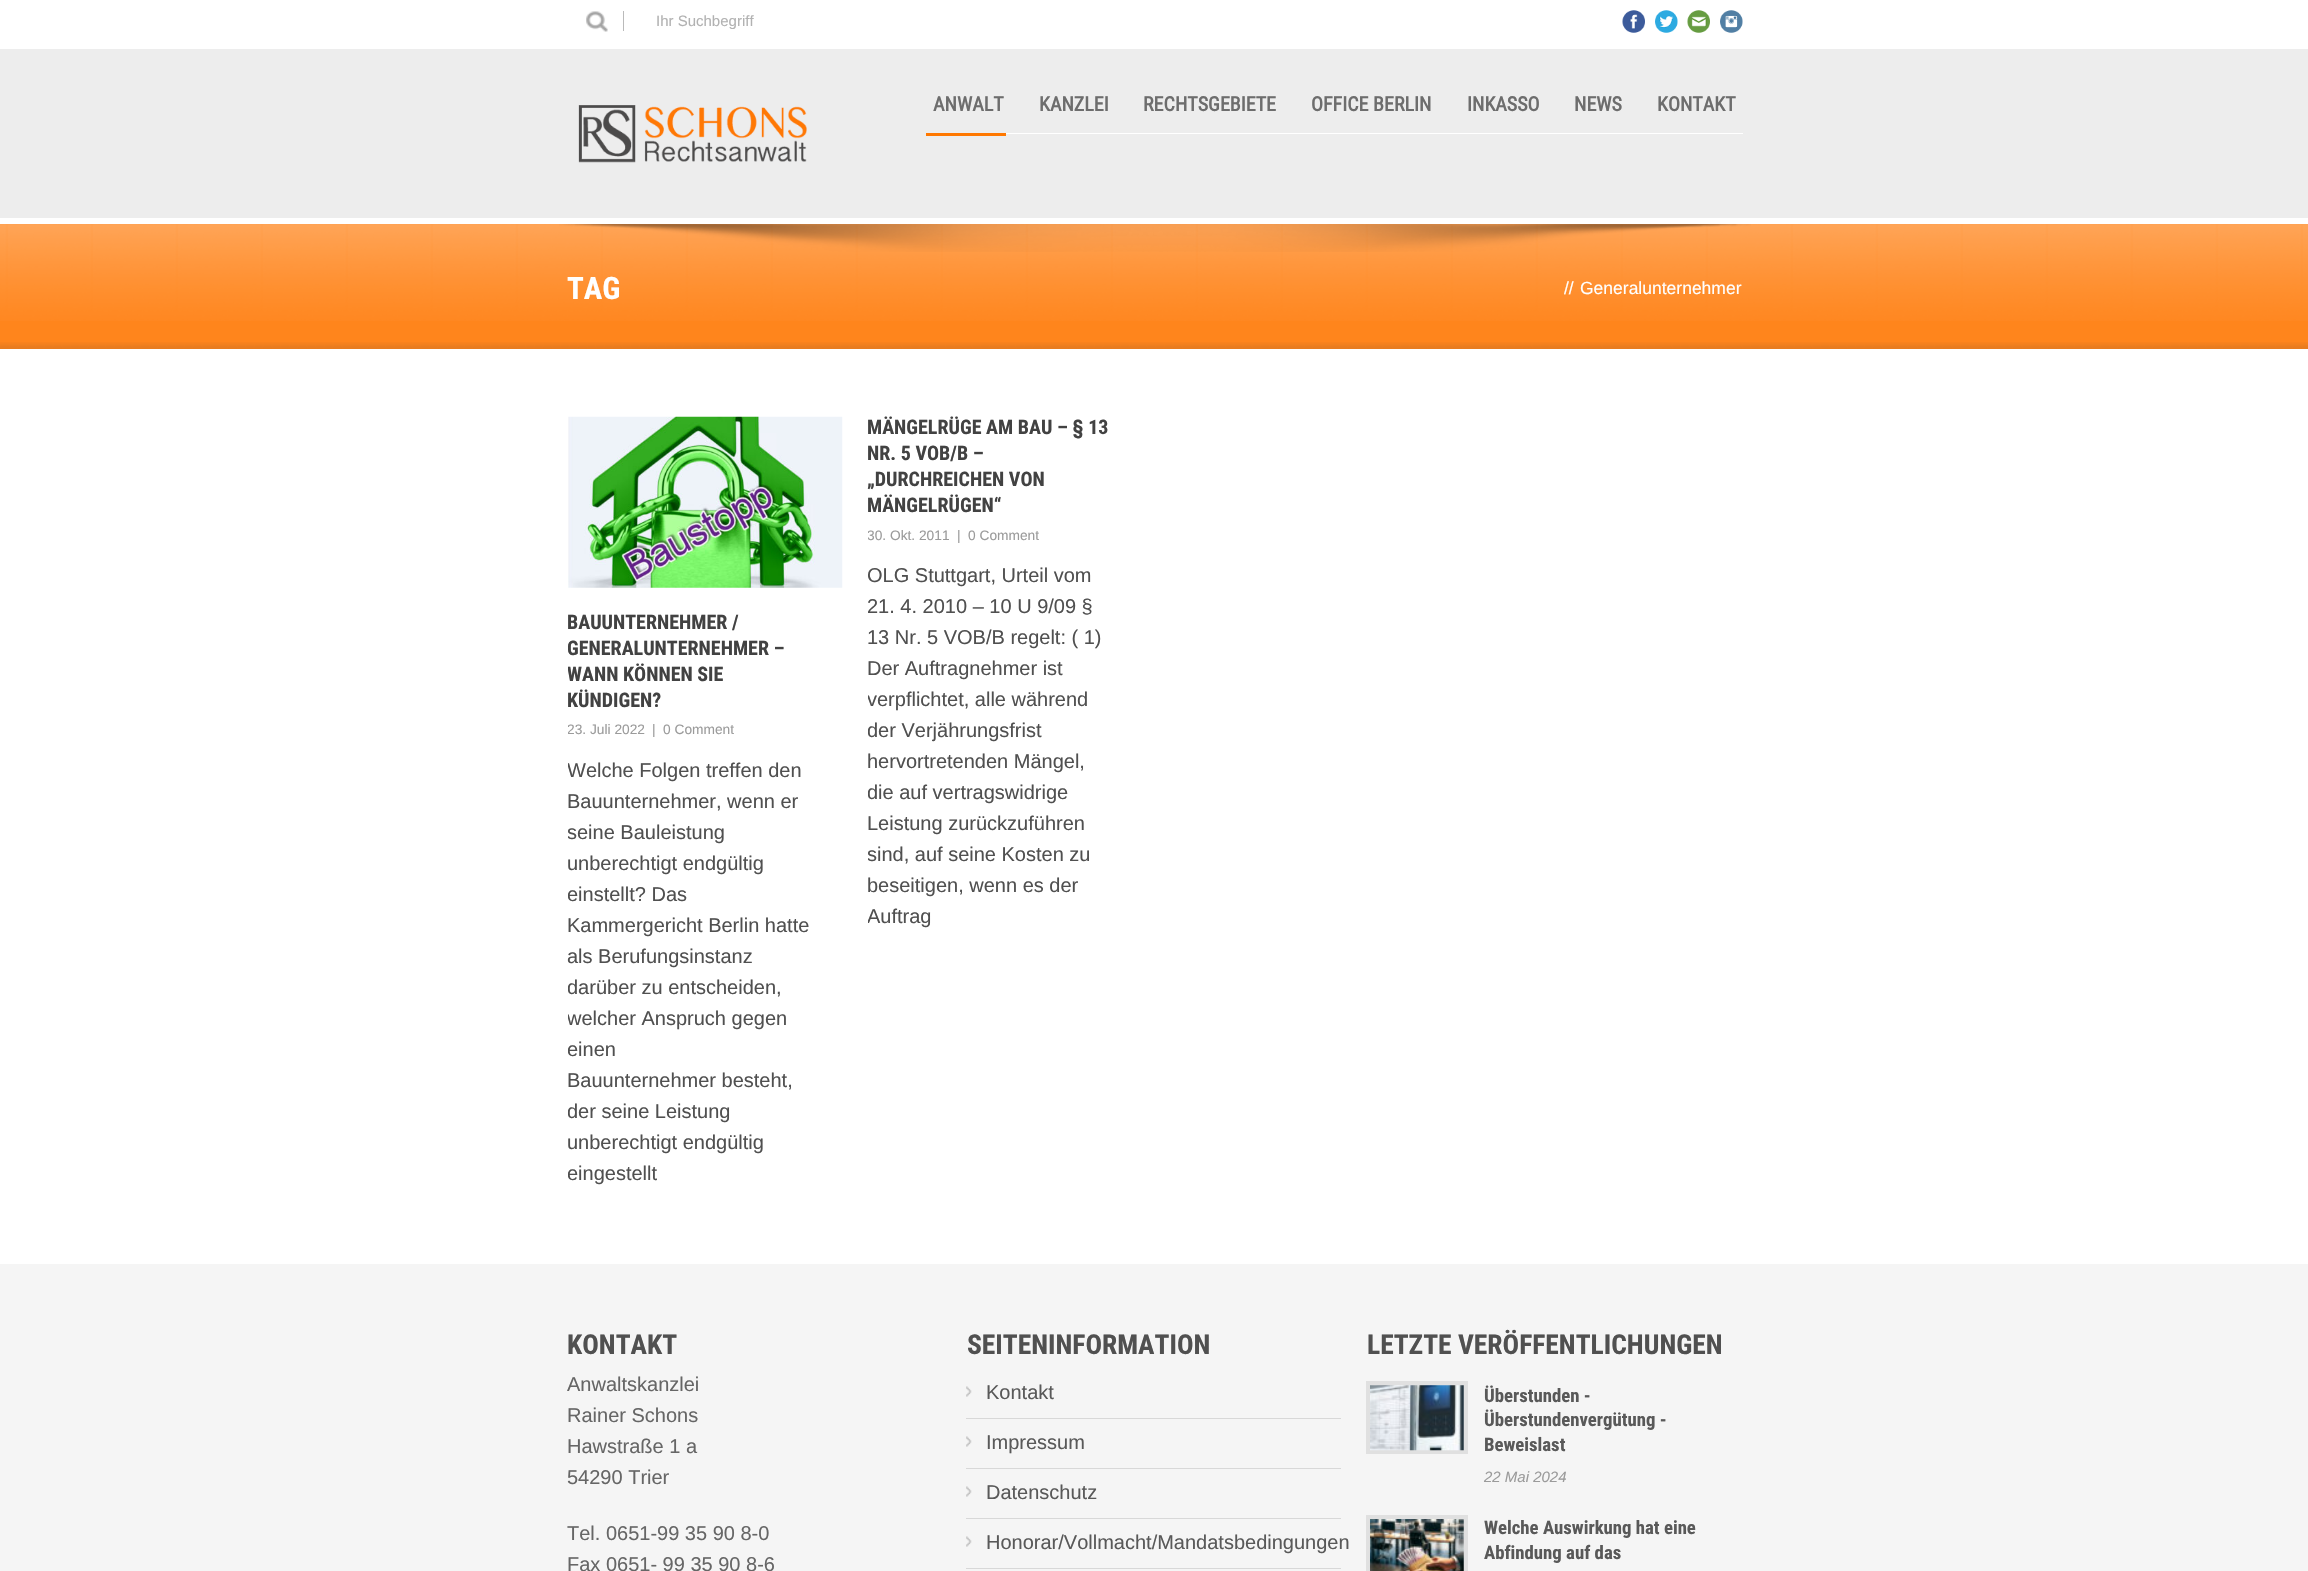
#include "include/core/SkBlurTypes.h"
#include "include/core/SkCanvas.h"
#include "include/core/SkData.h"
#include "include/core/SkFont.h"
#include "include/core/SkFontMgr.h"
#include "include/core/SkImage.h"
#include "include/core/SkMaskFilter.h"
#include "include/core/SkPaint.h"
#include "include/core/SkPathBuilder.h"
#include "include/core/SkTextBlob.h"
#include "include/effects/SkDashPathEffect.h"
#include "include/effects/SkGradientShader.h"
#include "include/utils/SkParsePath.h"

extern sk_sp<SkFontMgr> fontMgr;

void draw(SkCanvas* canvas) {
    SkPaint p;
    p.setAntiAlias(true);
    auto font = [&](const char* family, int weight, float size, bool italic = false) {
        SkFontStyle style(weight, SkFontStyle::kNormal_Width,
            italic ? SkFontStyle::kItalic_Slant : SkFontStyle::kUpright_Slant);
        SkFont result(fontMgr->matchFamilyStyle(family, style), size);
        result.setSubpixel(true);
        return result;
    };
    auto drawPhoto = [&](const char* path, float l, float t, float r, float b) {
        auto image = SkImages::DeferredFromEncodedData(SkData::MakeFromFileName(path));
        canvas->drawImageRect(image, SkRect::MakeLTRB(l, t, r, b), SkSamplingOptions());
    };
    canvas->clear(0xFFFFFFFF);
    drawPhoto("media/1.png", 586, 11, 608, 32);
    p.setColor(0xFFBABABA);
    canvas->drawRect(SkRect::MakeLTRB(623, 11, 624, 31), p);
    auto font1 = font("Liberation Sans", 400, 15);
    p.setColor(0xFFB2B2B2);
    canvas->drawString("Ihr Suchbegriff", 656, 26, font1, p);
    drawPhoto("media/2.png", 1622, 10, 1645, 33);
    drawPhoto("media/3.png", 1655, 10, 1678, 33);
    drawPhoto("media/4.png", 1687, 10, 1710, 33);
    drawPhoto("media/5.png", 1720, 10, 1743, 33);
    p.setColor(0xFFEDEDED);
    canvas->drawRect(SkRect::MakeLTRB(0, 49, 2308, 218), p);
    drawPhoto("media/6.png", 578, 105, 807, 163);
    p.setColor(0xFFFFFFFF);
    canvas->drawRect(SkRect::MakeLTRB(1006, 133, 1743, 134), p);
    auto font2 = font("Roboto Condensed", 700, 20);
    p.setColor(0xFF6D6D6D);
    {
        const struct { const char* s; float x, y; } items[] = {
            {"ANWALT", 933, 111},
            {"KANZLEI", 1039, 111},
            {"RECHTSGEBIETE", 1143, 111},
            {"OFFICE BERLIN", 1311, 111},
            {"INKASSO", 1467, 111},
            {"NEWS", 1574, 111},
            {"KONTAKT", 1657, 111},
        };
        for (auto [s, x, y] : items) {
            canvas->drawString(s, x, y, font2, p);
        }
    }
    p.setColor(0xFFFF7800);
    canvas->drawRect(SkRect::MakeLTRB(926, 133, 1006, 136), p);
    p.setColor(0xFFFF851C);
    canvas->drawRect(SkRect::MakeLTRB(0, 224, 2308, 349), p);
    drawPhoto("media/7.png", 0, 224, 2308, 321);
    drawPhoto("media/8.png", 559, 224, 1751, 252);
    auto font3 = font("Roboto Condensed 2", 700, 31);
    p.setColor(0xFFFFFFFF);
    canvas->drawString("TAG", 567, 299, font3, p);
    auto font4 = font("Liberation Sans", 400, 17.5f);
    canvas->drawString("//", 1564, 294, font4, p);
    canvas->drawString("Generalunternehmer", 1580, 294, font4, p);
    drawPhoto("media/9.png", 0, 342, 2308, 349);
    drawPhoto("media/10.png", 568, 416, 843, 588);
    auto font5 = font("Roboto Condensed 2", 700, 20);
    p.setColor(0xFF424242);
    canvas->drawString("BAUUNTERNEHMER /", 567, 629, font5, p);
    canvas->save();
    canvas->clipRect(SkRect::MakeLTRB(568, 416, 843, 1189));
    canvas->drawString("GENERALUNTERNEHMER –", 567, 655, font5, p);
    canvas->drawString("WANN KÖNNEN SIE", 567, 681, font5, p);
    canvas->restore();
    canvas->drawString("KÜNDIGEN?", 567, 707, font5, p);
    canvas->save();
    canvas->clipRect(SkRect::MakeLTRB(568, 416, 843, 1189));
    auto font6 = font("Liberation Sans", 400, 13.75f);
    p.setColor(0xFF9B9B9B);
    canvas->drawString("23. Juli 2022", 567, 734, font6, p);
    canvas->restore();
    canvas->drawString("|", 652, 734, font6, p);
    canvas->drawString("0 Comment", 663, 734, font6, p);
    canvas->save();
    canvas->clipRect(SkRect::MakeLTRB(568, 416, 843, 1189));
    auto font7 = font("Liberation Sans", 400, 20);
    p.setColor(0xFF505050);
    canvas->drawString("Welche Folgen treffen den", 567, 777, font7, p);
    canvas->restore();
    canvas->drawString("Bauunternehmer, wenn er", 567, 808, font7, p);
    canvas->save();
    canvas->clipRect(SkRect::MakeLTRB(568, 416, 843, 1189));
    canvas->drawString("seine Bauleistung", 567, 839, font7, p);
    canvas->restore();
    canvas->drawString("unberechtigt endgültig", 567, 870, font7, p);
    canvas->save();
    canvas->clipRect(SkRect::MakeLTRB(568, 416, 843, 1189));
    canvas->drawString("einstellt? Das", 567, 901, font7, p);
    canvas->restore();
    canvas->drawString("Kammergericht Berlin hatte", 567, 932, font7, p);
    canvas->drawString("als Berufungsinstanz", 567, 963, font7, p);
    canvas->save();
    canvas->clipRect(SkRect::MakeLTRB(568, 416, 843, 1189));
    {
        const struct { const char* s; float x, y; } items[] = {
            {"darüber zu entscheiden,", 567, 994},
            {"welcher Anspruch gegen", 567, 1025},
            {"einen", 567, 1056},
        };
        for (auto [s, x, y] : items) {
            canvas->drawString(s, x, y, font7, p);
        }
    }
    canvas->restore();
    canvas->drawString("Bauunternehmer besteht,", 567, 1087, font7, p);
    canvas->save();
    canvas->clipRect(SkRect::MakeLTRB(568, 416, 843, 1189));
    canvas->drawString("der seine Leistung", 567, 1118, font7, p);
    canvas->restore();
    canvas->drawString("unberechtigt endgültig", 567, 1149, font7, p);
    canvas->save();
    canvas->clipRect(SkRect::MakeLTRB(568, 416, 843, 1189));
    canvas->drawString("eingestellt", 567, 1180, font7, p);
    canvas->restore();
    p.setColor(0xFF424242);
    {
        const struct { const char* s; float x, y; } items[] = {
            {"MÄNGELRÜGE AM BAU – § 13", 867, 434},
            {"NR. 5 VOB/B –", 867, 460},
            {"„DURCHREICHEN VON", 867, 486},
            {"MÄNGELRÜGEN“", 867, 512},
        };
        for (auto [s, x, y] : items) {
            canvas->drawString(s, x, y, font5, p);
        }
    }
    canvas->save();
    canvas->clipRect(SkRect::MakeLTRB(868, 416, 1143, 933));
    p.setColor(0xFF9B9B9B);
    canvas->drawString("30. Okt. 2011", 867, 540, font6, p);
    canvas->restore();
    canvas->drawString("|", 957, 540, font6, p);
    canvas->drawString("0 Comment", 968, 540, font6, p);
    p.setColor(0xFF505050);
    {
        const struct { const char* s; float x, y; } items[] = {
            {"OLG Stuttgart, Urteil vom", 867, 582},
            {"21. 4. 2010 – 10 U 9/09 §", 867, 613},
            {"13 Nr. 5 VOB/B regelt: ( 1)", 867, 644},
            {"Der Auftragnehmer ist", 867, 675},
        };
        for (auto [s, x, y] : items) {
            canvas->drawString(s, x, y, font7, p);
        }
    }
    canvas->save();
    canvas->clipRect(SkRect::MakeLTRB(868, 416, 1143, 933));
    canvas->drawString("verpflichtet, alle während", 867, 706, font7, p);
    canvas->drawString("der Verjährungsfrist", 867, 737, font7, p);
    canvas->restore();
    canvas->drawString("hervortretenden Mängel,", 867, 768, font7, p);
    canvas->save();
    canvas->clipRect(SkRect::MakeLTRB(868, 416, 1143, 933));
    canvas->drawString("die auf vertragswidrige", 867, 799, font7, p);
    canvas->restore();
    canvas->drawString("Leistung zurückzuführen", 867, 830, font7, p);
    canvas->save();
    canvas->clipRect(SkRect::MakeLTRB(868, 416, 1143, 933));
    canvas->drawString("sind, auf seine Kosten zu", 867, 861, font7, p);
    canvas->restore();
    canvas->drawString("beseitigen, wenn es der", 867, 892, font7, p);
    canvas->save();
    canvas->clipRect(SkRect::MakeLTRB(868, 416, 1143, 933));
    canvas->drawString("Auftrag", 867, 923, font7, p);
    canvas->restore();
    p.setColor(0xFFF5F5F5);
    canvas->drawRect(SkRect::MakeLTRB(0, 1264, 2308, 1571), p);
    auto font8 = font("Roboto Condensed 2", 700, 27.5f);
    p.setColor(0xFF505050);
    canvas->drawString("KONTAKT", 567, 1354, font8, p);
    p.setColor(0xFF666666);
    {
        const struct { const char* s; float x, y; } items[] = {
            {"Anwaltskanzlei", 567, 1391},
            {"Rainer Schons", 567, 1422},
            {"Hawstraße 1 a", 567, 1453},
            {"54290 Trier", 567, 1484},
            {"Tel. 0651-99 35 90 8-0", 567, 1540},
            {"Fax 0651- 99 35 90 8-6", 567, 1571},
        };
        for (auto [s, x, y] : items) {
            canvas->drawString(s, x, y, font7, p);
        }
    }
    p.setColor(0xFF505050);
    canvas->drawString("SEITENINFORMATION", 967, 1354, font8, p);
    drawPhoto("media/11.png", 966, 1386, 972, 1397);
    p.setColor(0xFFD8D8D8);
    canvas->drawRect(SkRect::MakeLTRB(966, 1418, 1341, 1419), p);
    p.setColor(0xFF595959);
    canvas->drawString("Kontakt", 986, 1399, font7, p);
    drawPhoto("media/11.png", 966, 1436, 972, 1447);
    p.setColor(0xFFD8D8D8);
    canvas->drawRect(SkRect::MakeLTRB(966, 1468, 1341, 1469), p);
    p.setColor(0xFF595959);
    canvas->drawString("Impressum", 986, 1449, font7, p);
    drawPhoto("media/11.png", 966, 1486, 972, 1497);
    p.setColor(0xFFD8D8D8);
    canvas->drawRect(SkRect::MakeLTRB(966, 1518, 1341, 1519), p);
    p.setColor(0xFF595959);
    canvas->drawString("Datenschutz", 986, 1499, font7, p);
    drawPhoto("media/11.png", 966, 1536, 972, 1547);
    p.setColor(0xFFD8D8D8);
    canvas->drawRect(SkRect::MakeLTRB(966, 1568, 1341, 1569), p);
    p.setColor(0xFF595959);
    canvas->drawString("Honorar/Vollmacht/Mandatsbedingungen", 986, 1549, font7, p);
    p.setColor(0xFF505050);
    canvas->drawString("LETZTE VERÖFFENTLICHUNGEN", 1367, 1354, font8, p);
    p.setColor(0xFFE0E0E0);
    canvas->drawRect(SkRect::MakeLTRB(1366, 1381, 1468, 1454), p);
    drawPhoto("media/12.png", 1370, 1385, 1464, 1451);
    auto font9 = font("Roboto Condensed 2", 700, 18.75f);
    p.setColor(0xFF595959);
    {
        const struct { const char* s; float x, y; } items[] = {
            {"Überstunden -", 1484, 1402},
            {"Überstundenvergütung -", 1484, 1426},
            {"Beweislast", 1484, 1451},
        };
        for (auto [s, x, y] : items) {
            canvas->drawString(s, x, y, font9, p);
        }
    }
    auto font10 = font("Liberation Sans", 400, 15, true);
    p.setColor(0xFF9B9B9B);
    canvas->drawString("22 Mai 2024", 1484, 1482, font10, p);
    p.setColor(0xFFE0E0E0);
    canvas->drawRect(SkRect::MakeLTRB(1366, 1515, 1468, 1571), p);
    drawPhoto("media/13.png", 1370, 1519, 1464, 1571);
    p.setColor(0xFF595959);
    canvas->drawString("Welche Auswirkung hat eine", 1484, 1534, font9, p);
    canvas->drawString("Abfindung auf das", 1484, 1559, font9, p);
}
